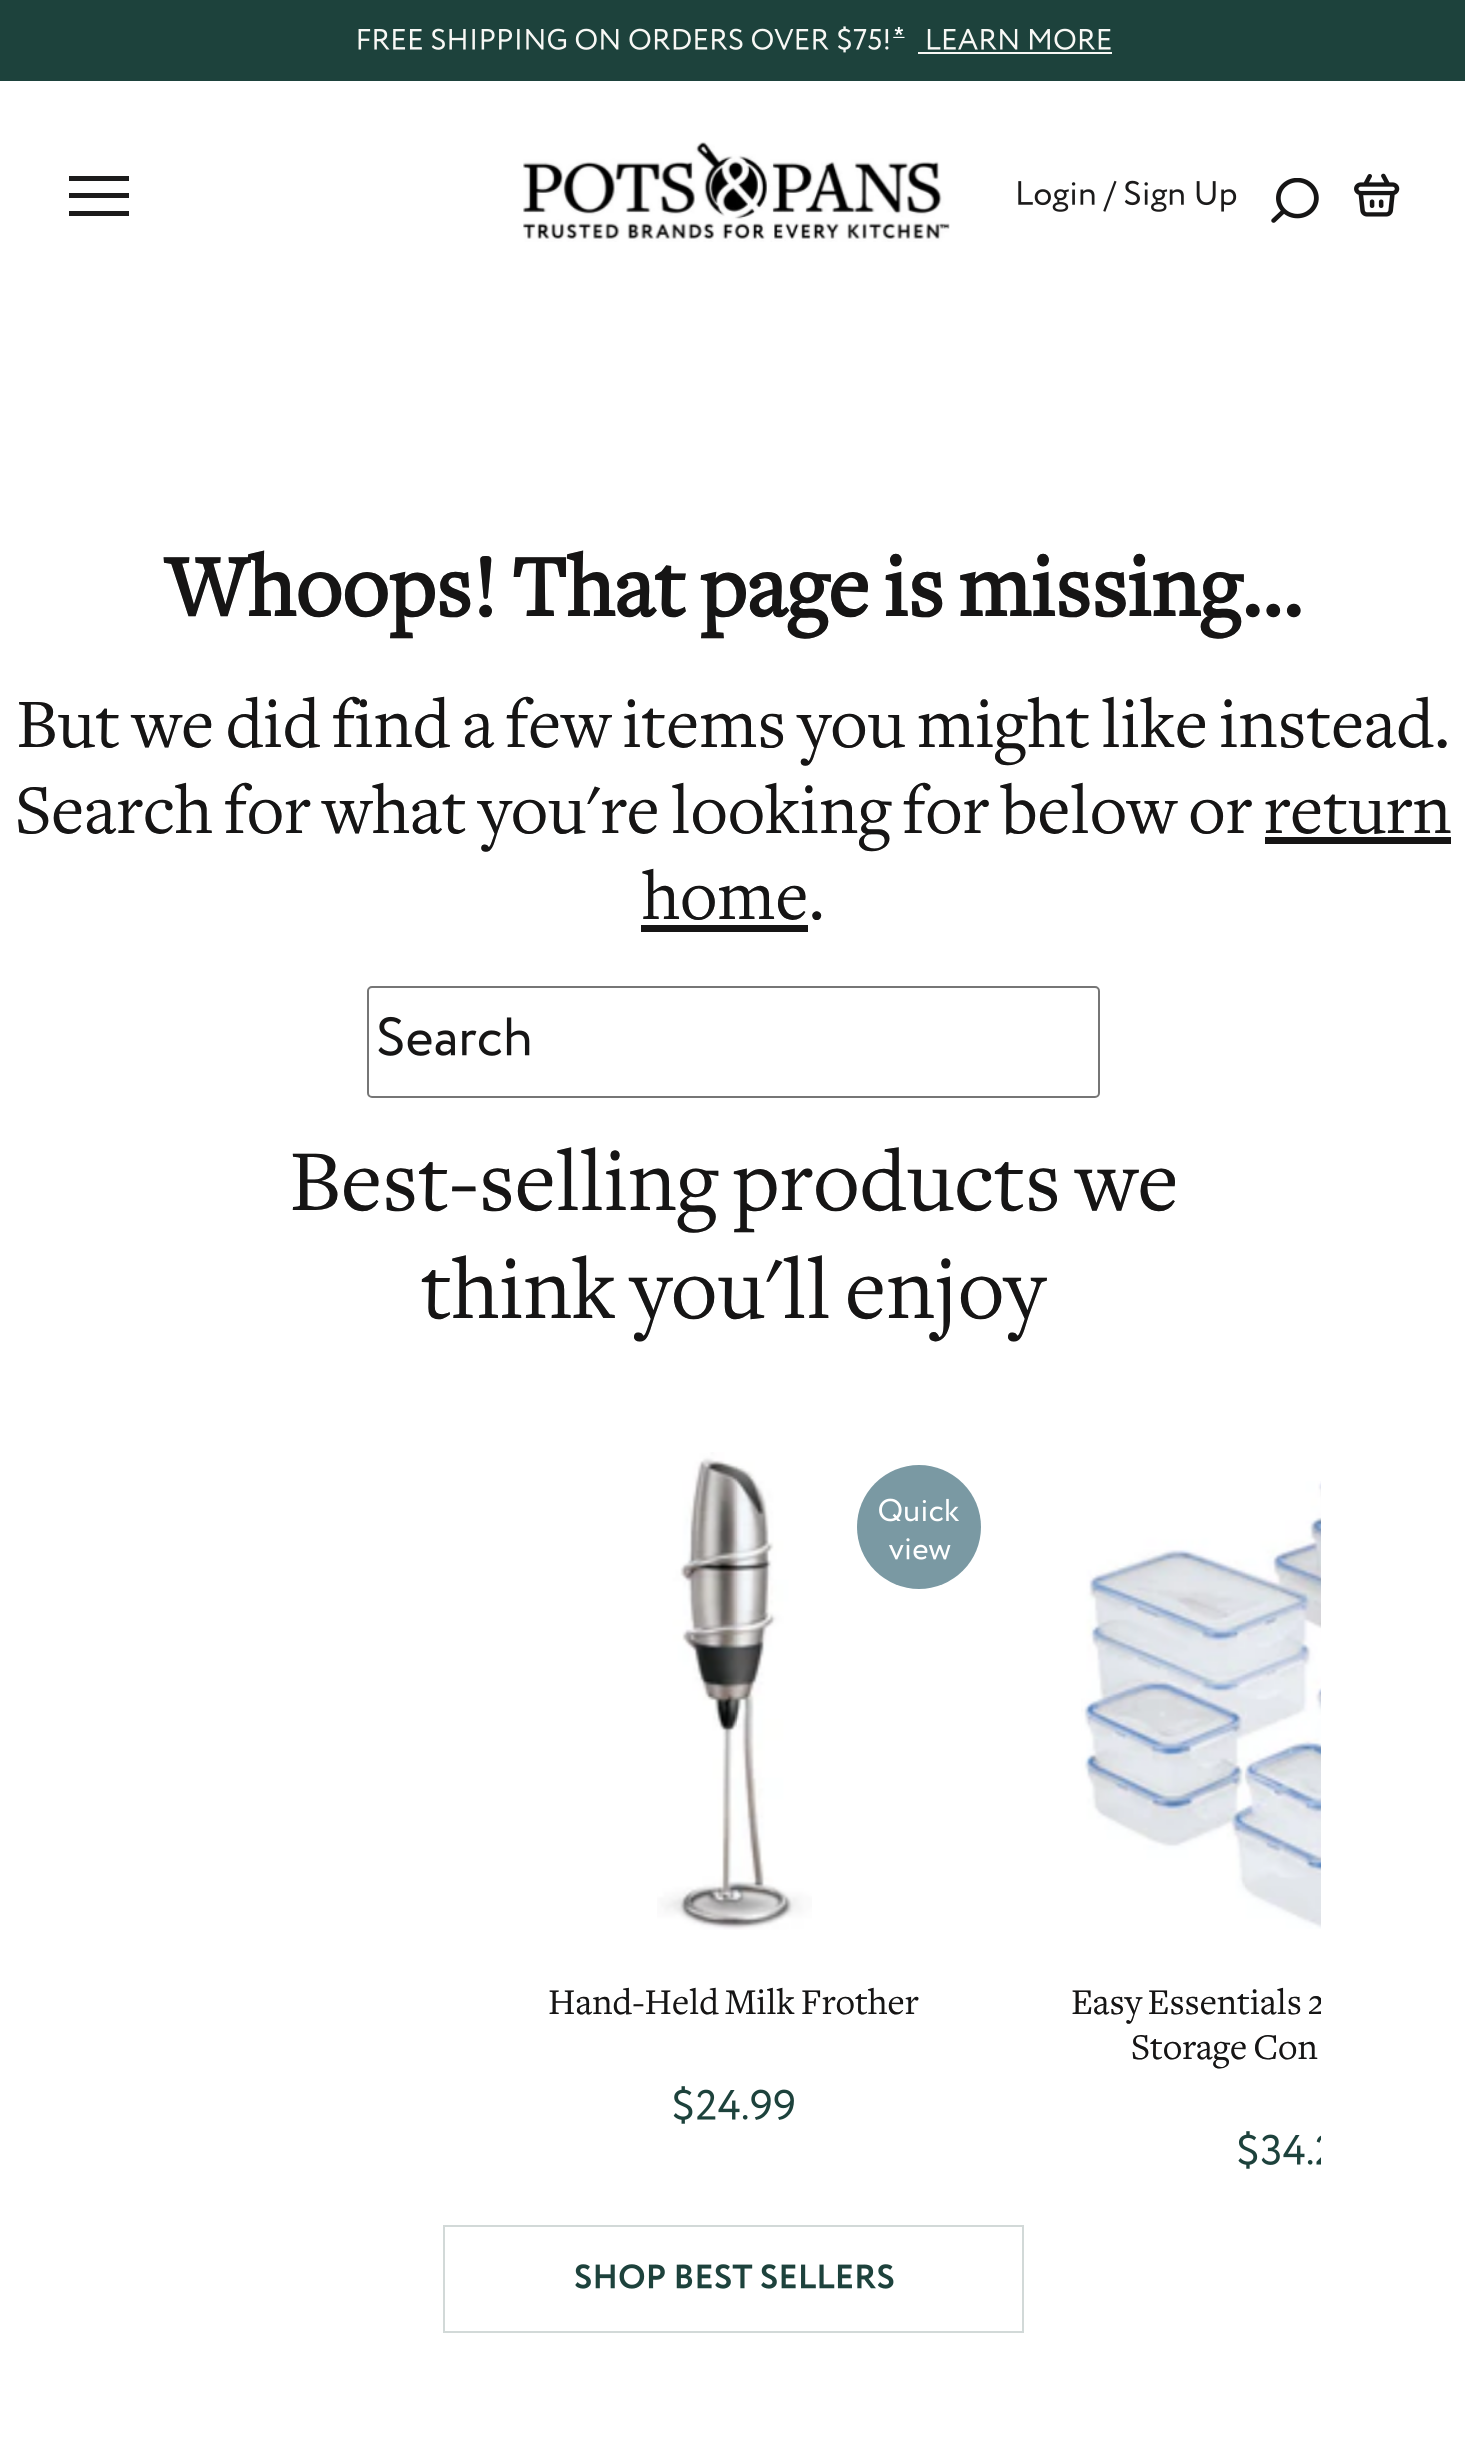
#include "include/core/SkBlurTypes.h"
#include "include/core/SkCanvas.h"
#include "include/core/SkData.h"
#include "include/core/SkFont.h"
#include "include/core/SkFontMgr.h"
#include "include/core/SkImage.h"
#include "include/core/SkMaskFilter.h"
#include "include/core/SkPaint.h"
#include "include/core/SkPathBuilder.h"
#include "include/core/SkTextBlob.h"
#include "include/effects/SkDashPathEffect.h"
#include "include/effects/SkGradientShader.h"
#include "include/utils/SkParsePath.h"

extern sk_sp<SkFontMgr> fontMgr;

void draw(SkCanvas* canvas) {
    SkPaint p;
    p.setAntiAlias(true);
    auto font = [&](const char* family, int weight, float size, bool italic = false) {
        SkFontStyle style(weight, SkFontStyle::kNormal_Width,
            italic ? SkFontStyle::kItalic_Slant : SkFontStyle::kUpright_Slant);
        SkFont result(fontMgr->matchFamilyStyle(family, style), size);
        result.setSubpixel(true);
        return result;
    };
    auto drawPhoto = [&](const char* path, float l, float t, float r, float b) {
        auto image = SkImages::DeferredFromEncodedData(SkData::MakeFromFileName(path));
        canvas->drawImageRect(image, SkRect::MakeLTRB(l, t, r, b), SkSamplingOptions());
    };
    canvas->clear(0xFFFFFFFF);
    p.setColor(0xFF1D423C);
    canvas->drawRect(SkRect::MakeLTRB(0, 0, 1465, 81), p);
    drawPhoto("media/1.png", 358, 26, 889, 53);
    drawPhoto("media/2.png", 893, 27, 905, 38);
    drawPhoto("media/3.png", 927, 28, 1111, 50);
    p.setColor(0xFFF8F8F5);
    canvas->drawRect(SkRect::MakeLTRB(918, 52, 1112, 54), p);
    canvas->save();
    canvas->clipRect(SkRect::MakeLTRB(68, 176, 131, 216));
    p.setColor(0xFF1C1B1B);
    canvas->drawPath(SkPathBuilder().moveTo(69, 216).lineTo(69, 211).lineTo(129, 211).lineTo(129, 216).close().moveTo(69, 193).lineTo(129, 193).lineTo(129, 198).lineTo(69, 198).close().moveTo(69, 175).lineTo(129, 175).lineTo(129, 181).lineTo(69, 181).close().detach(), p);
    canvas->restore();
    drawPhoto("media/4.png", 523, 141, 950, 242);
    drawPhoto("media/5.png", 1018, 180, 1237, 212);
    drawPhoto("media/6.png", 1271, 178, 1319, 223);
    drawPhoto("media/7.png", 1354, 173, 1400, 217);
    auto font1 = font("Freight", 700, 90);
    p.setColor(0xFF161515);
    canvas->drawString("Whoops! That page is missing...", 165, 616, font1, p);
    auto font2 = font("Freight", 400, 72);
    {
        const struct { const char* s; float x, y; } items[] = {
            {"But we did find a few items you might like instead.", 16, 747},
            {"Search for what you're looking for below or return", 15, 833},
            {"home.", 642, 919},
        };
        for (auto [s, x, y] : items) {
            canvas->drawString(s, x, y, font2, p);
        }
    }
    canvas->drawRect(SkRect::MakeLTRB(1265, 837, 1451, 844), p);
    canvas->drawRect(SkRect::MakeLTRB(641, 925, 808, 932), p);
    p.setStyle(SkPaint::kStroke_Style);
    p.setStrokeWidth(2);
    p.setColor(0xFF767676);
    canvas->drawRoundRect(SkRect::MakeLTRB(368, 987, 1099, 1097), 4, 4, p);
    drawPhoto("media/8.png", 378, 1016, 530, 1056);
    auto font3 = font("Freight", 400, 90);
    p.setStyle(SkPaint::kFill_Style);
    p.setColor(0xFF161515);
    canvas->drawString("Best-selling products we", 289, 1210, font3, p);
    canvas->drawString("think you'll enjoy", 421, 1318, font3, p);
    drawPhoto("media/9.png", 657, 1452, 812, 1930);
    p.setColor(0xFF7A99A3);
    canvas->drawCircle(919, 1527, 62, p);
    drawPhoto("media/10.png", 879, 1498, 959, 1522);
    drawPhoto("media/11.png", 889, 1538, 951, 1560);
    auto font4 = font("Freight", 400, 37.5f);
    p.setColor(0xFF161515);
    canvas->drawString("Hand-Held Milk Frother", 548, 2014, font4, p);
    drawPhoto("media/12.png", 673, 2086, 794, 2124);
    drawPhoto("media/13.png", 1081, 1481, 1321, 1929);
    canvas->save();
    canvas->clipRect(SkRect::MakeLTRB(146, 1442, 1321, 2225));
    canvas->drawString("Easy Essentials 2", 1071, 2014, font4, p);
    canvas->restore();
    canvas->drawString("Storage Con", 1131, 2059, font4, p);
    drawPhoto("media/14.png", 1238, 2131, 1321, 2169);
    p.setStyle(SkPaint::kStroke_Style);
    p.setColor(0xFFD2D9D8);
    canvas->drawRect(SkRect::MakeLTRB(444, 2226, 1023, 2332), p);
    drawPhoto("media/15.png", 575, 2264, 894, 2289);
}
